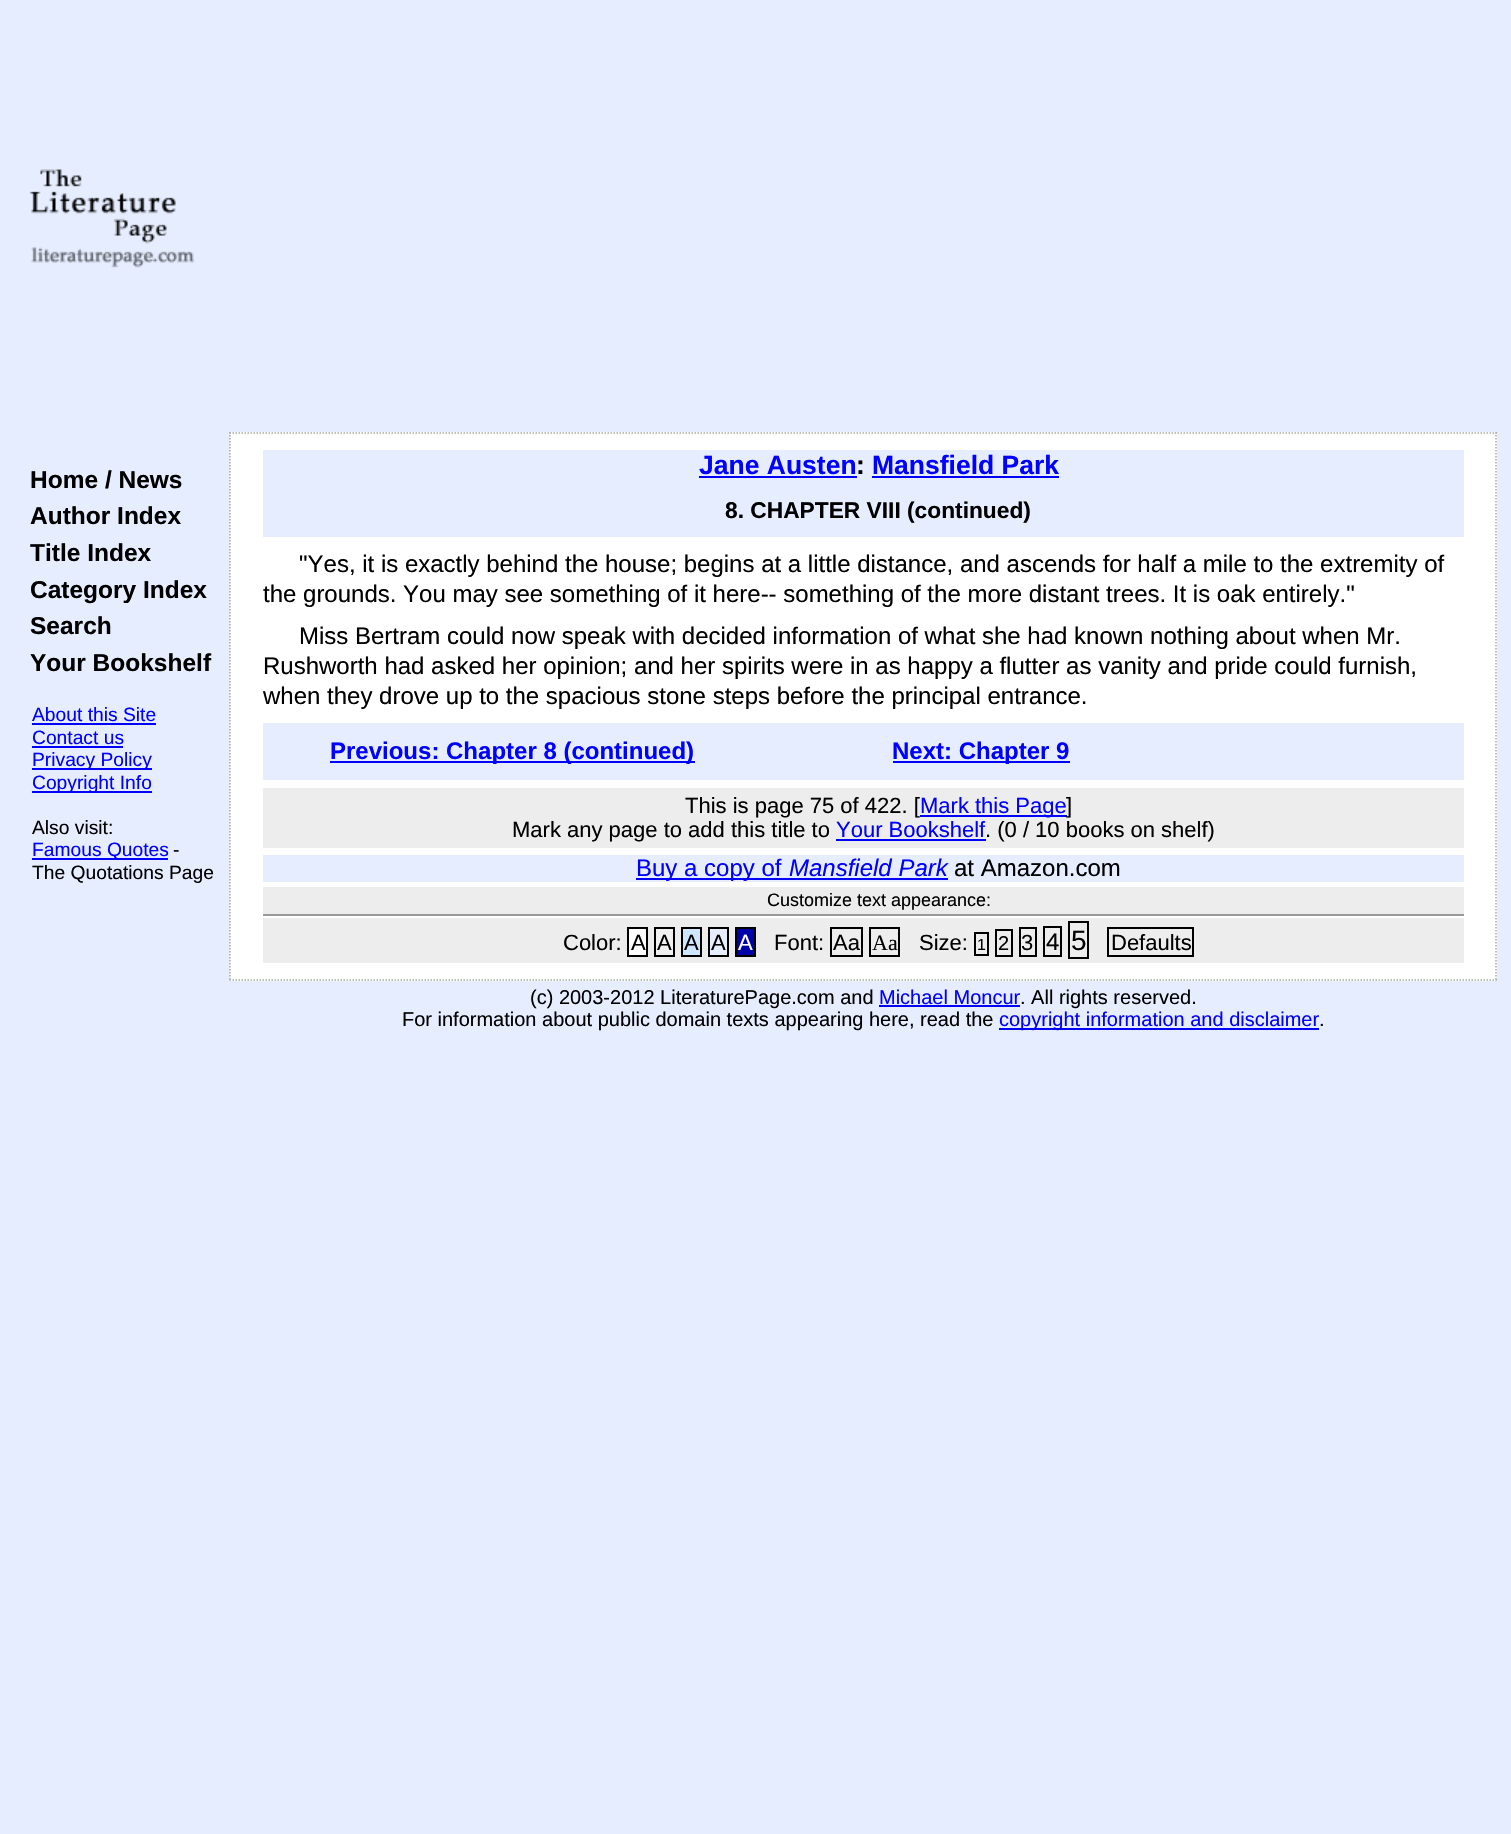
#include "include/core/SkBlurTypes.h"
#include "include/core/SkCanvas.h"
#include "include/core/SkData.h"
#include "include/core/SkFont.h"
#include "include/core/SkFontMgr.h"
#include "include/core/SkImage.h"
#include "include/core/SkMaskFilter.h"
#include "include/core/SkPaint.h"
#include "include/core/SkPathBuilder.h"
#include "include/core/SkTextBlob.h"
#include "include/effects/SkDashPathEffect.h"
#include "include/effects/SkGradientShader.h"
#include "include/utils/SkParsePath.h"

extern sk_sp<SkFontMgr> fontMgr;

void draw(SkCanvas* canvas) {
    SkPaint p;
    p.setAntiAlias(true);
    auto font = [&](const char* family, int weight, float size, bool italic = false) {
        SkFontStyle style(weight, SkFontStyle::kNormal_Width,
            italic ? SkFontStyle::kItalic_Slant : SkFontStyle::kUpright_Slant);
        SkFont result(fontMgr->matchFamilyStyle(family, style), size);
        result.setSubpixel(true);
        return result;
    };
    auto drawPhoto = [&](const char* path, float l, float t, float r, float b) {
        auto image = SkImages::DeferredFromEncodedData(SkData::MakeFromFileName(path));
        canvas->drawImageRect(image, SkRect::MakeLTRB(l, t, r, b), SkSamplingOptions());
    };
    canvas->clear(0xFFE6EDFF);
    drawPhoto("media/1.png", 29, 169, 195, 268);
    auto font1 = font("Liberation Sans", 700, 24.5f);
    p.setColor(0xFF000000);
    {
        const struct { const char* s; float x, y; } items[] = {
            {"Home / News", 30, 488},
            {"Author Index", 30, 524},
            {"Title Index", 30, 561},
            {"Category Index", 30, 598},
            {"Search", 30, 634},
            {"Your Bookshelf", 30, 671},
        };
        for (auto [s, x, y] : items) {
            canvas->drawString(s, x, y, font1, p);
        }
    }
    auto font2 = font("Liberation Sans", 400, 19.25f);
    p.setColor(0xFF0000FF);
    canvas->drawString("About this Site", 32, 721, font2, p);
    canvas->drawRect(SkRect::MakeLTRB(32, 723, 156, 725), p);
    canvas->drawString("Contact us", 32, 744, font2, p);
    canvas->drawRect(SkRect::MakeLTRB(32, 746, 123, 748), p);
    canvas->drawRect(SkRect::MakeLTRB(32, 768, 152, 770), p);
    canvas->drawString("Privacy Policy", 32, 766, font2, p);
    canvas->drawRect(SkRect::MakeLTRB(32, 791, 152, 793), p);
    canvas->drawString("Copyright Info", 32, 789, font2, p);
    p.setColor(0xFF000000);
    canvas->drawString("Also visit:", 32, 834, font2, p);
    p.setColor(0xFF0000FF);
    canvas->drawRect(SkRect::MakeLTRB(32, 858, 168, 860), p);
    canvas->drawString("Famous Quotes", 32, 856, font2, p);
    p.setColor(0xFF000000);
    canvas->drawString("-", 173, 856, font2, p);
    canvas->drawString("The Quotations Page", 32, 879, font2, p);
    p.setColor(0xFFFFFFFF);
    canvas->drawRect(SkRect::MakeLTRB(230, 432, 1497, 981), p);
    p.setStyle(SkPaint::kStroke_Style);
    p.setStrokeWidth(1.5f);
    p.setColor(0xFFA6AD9F);
    p.setPathEffect(SkDashPathEffect::Make({{1.5f, 1.5f}}, 0));
    canvas->drawPath(SkPathBuilder().moveTo(229.5f, 433).lineTo(1497, 433).detach(), p);
    p.setPathEffect(nullptr);
    p.setPathEffect(SkDashPathEffect::Make({{1.5f, 1.5f}}, 0));
    canvas->drawPath(SkPathBuilder().moveTo(1496, 432).lineTo(1496, 981).detach(), p);
    p.setPathEffect(nullptr);
    p.setPathEffect(SkDashPathEffect::Make({{1.5f, 1.5f}}, 0));
    canvas->drawPath(SkPathBuilder().moveTo(229.5f, 980).lineTo(1497, 980).detach(), p);
    p.setPathEffect(nullptr);
    p.setPathEffect(SkDashPathEffect::Make({{1.5f, 1.5f}}, 0));
    canvas->drawPath(SkPathBuilder().moveTo(230, 432).lineTo(230, 981).detach(), p);
    p.setPathEffect(nullptr);
    p.setStyle(SkPaint::kFill_Style);
    p.setColor(0xFFE6EDFF);
    canvas->drawRect(SkRect::MakeLTRB(263, 450, 1464, 537), p);
    auto font3 = font("Liberation Sans", 700, 26.5f);
    p.setColor(0xFF0000FF);
    canvas->drawString("Jane Austen", 699, 474, font3, p);
    canvas->drawRect(SkRect::MakeLTRB(699, 476, 857, 478), p);
    p.setColor(0xFF000000);
    canvas->drawString(":", 856, 474, font3, p);
    p.setColor(0xFF0000FF);
    canvas->drawString("Mansfield Park", 872, 474, font3, p);
    canvas->drawRect(SkRect::MakeLTRB(872, 476, 1059, 478), p);
    auto font4 = font("Liberation Sans", 700, 22.75f);
    p.setColor(0xFF000000);
    canvas->drawString("8. CHAPTER VIII (continued)", 725, 518, font4, p);
    auto font5 = font("Liberation Sans", 400, 24);
    {
        const struct { const char* s; float x, y; } items[] = {
            {"\"Yes, it is exactly behind the house; begins at a little distance, and ascends for half a mile to the extremity of", 299, 572},
            {"the grounds. You may see something of it here-- something of the more distant trees. It is oak entirely.\"", 263, 602},
            {"Miss Bertram could now speak with decided information of what she had known nothing about when Mr.", 299, 644},
            {"Rushworth had asked her opinion; and her spirits were in as happy a flutter as vanity and pride could furnish,", 263, 674},
            {"when they drove up to the spacious stone steps before the principal entrance.", 263, 704},
        };
        for (auto [s, x, y] : items) {
            canvas->drawString(s, x, y, font5, p);
        }
    }
    p.setColor(0xFFE6EDFF);
    canvas->drawRect(SkRect::MakeLTRB(263, 723, 1464, 780), p);
    p.setColor(0xFF0000FF);
    canvas->drawRect(SkRect::MakeLTRB(330, 761, 695, 763), p);
    auto font6 = font("Liberation Sans", 700, 24);
    canvas->drawString("Previous: Chapter 8 (continued)", 330, 759, font6, p);
    canvas->drawRect(SkRect::MakeLTRB(893, 761, 1070, 763), p);
    canvas->drawString("Next: Chapter 9", 892, 759, font6, p);
    p.setColor(0xFFEDEDED);
    canvas->drawRect(SkRect::MakeLTRB(263, 788, 1464, 848), p);
    auto font7 = font("Liberation Sans", 400, 22);
    p.setColor(0xFF000000);
    canvas->drawString("This is page 75 of 422. [", 685, 813, font7, p);
    p.setColor(0xFF0000FF);
    canvas->drawRect(SkRect::MakeLTRB(920, 815, 1067, 817), p);
    canvas->drawString("Mark this Page", 920, 813, font7, p);
    p.setColor(0xFF000000);
    canvas->drawString("]", 1066, 813, font7, p);
    canvas->drawString("Mark any page to add this title to", 512, 837, font7, p);
    p.setColor(0xFF0000FF);
    canvas->drawString("Your Bookshelf", 836, 837, font7, p);
    canvas->drawRect(SkRect::MakeLTRB(836, 839, 986, 841), p);
    p.setColor(0xFF000000);
    canvas->drawString(". (0 / 10 books on shelf)", 985, 837, font7, p);
    p.setColor(0xFFE6EDFF);
    canvas->drawRect(SkRect::MakeLTRB(263, 855, 1464, 882), p);
    p.setColor(0xFF0000FF);
    canvas->drawRect(SkRect::MakeLTRB(636, 878, 948, 880), p);
    canvas->drawString("Buy a copy of", 636, 876, font5, p);
    auto font8 = font("Liberation Sans", 400, 24, true);
    canvas->drawString("Mansfield Park", 789, 876, font8, p);
    p.setColor(0xFF000000);
    canvas->drawString("at Amazon.com", 954, 876, font5, p);
    p.setColor(0xFFEDEDED);
    canvas->drawRect(SkRect::MakeLTRB(263, 887, 1464, 914), p);
    p.setColor(0xFF999999);
    canvas->drawRect(SkRect::MakeLTRB(263, 914, 1464, 916), p);
    auto font9 = font("Liberation Sans", 400, 18);
    p.setColor(0xFF000000);
    canvas->drawString("Customize text appearance:", 767, 906, font9, p);
    p.setColor(0xFFEDEDED);
    canvas->drawRect(SkRect::MakeLTRB(263, 918, 1464, 963), p);
    p.setColor(0xFF000000);
    canvas->drawString("Color:", 563, 950, font7, p);
    p.setColor(0xFFFFFFFF);
    canvas->drawRect(SkRect::MakeLTRB(628, 928, 647, 956), p);
    p.setStyle(SkPaint::kStroke_Style);
    p.setStrokeWidth(2);
    p.setColor(0xFF000000);
    canvas->drawRect(SkRect::MakeLTRB(628, 928, 647, 956), p);
    p.setStyle(SkPaint::kFill_Style);
    canvas->drawString("A", 631, 950, font7, p);
    p.setColor(0xFFF0F0F0);
    canvas->drawRect(SkRect::MakeLTRB(655, 928, 674, 956), p);
    p.setStyle(SkPaint::kStroke_Style);
    p.setColor(0xFF000000);
    canvas->drawRect(SkRect::MakeLTRB(655, 928, 674, 956), p);
    p.setStyle(SkPaint::kFill_Style);
    canvas->drawString("A", 657, 950, font7, p);
    p.setColor(0xFFCEE7FF);
    canvas->drawRect(SkRect::MakeLTRB(682, 928, 701, 956), p);
    p.setStyle(SkPaint::kStroke_Style);
    p.setColor(0xFF000000);
    canvas->drawRect(SkRect::MakeLTRB(682, 928, 701, 956), p);
    p.setStyle(SkPaint::kFill_Style);
    canvas->drawString("A", 684, 950, font7, p);
    p.setColor(0xFFE6EDFF);
    canvas->drawRect(SkRect::MakeLTRB(709, 928, 728, 956), p);
    p.setStyle(SkPaint::kStroke_Style);
    p.setColor(0xFF000000);
    canvas->drawRect(SkRect::MakeLTRB(709, 928, 728, 956), p);
    p.setStyle(SkPaint::kFill_Style);
    canvas->drawString("A", 711, 950, font7, p);
    p.setColor(0xFF0000AA);
    canvas->drawRect(SkRect::MakeLTRB(736, 928, 755, 956), p);
    p.setStyle(SkPaint::kStroke_Style);
    p.setColor(0xFF000000);
    canvas->drawRect(SkRect::MakeLTRB(736, 928, 755, 956), p);
    p.setStyle(SkPaint::kFill_Style);
    p.setColor(0xFFFFFFFF);
    canvas->drawString("A", 738, 950, font7, p);
    p.setColor(0xFF000000);
    canvas->drawString("Font:", 774, 950, font7, p);
    p.setStyle(SkPaint::kStroke_Style);
    canvas->drawRect(SkRect::MakeLTRB(831, 928, 862, 956), p);
    p.setStyle(SkPaint::kFill_Style);
    canvas->drawString("Aa", 833, 950, font7, p);
    p.setStyle(SkPaint::kStroke_Style);
    canvas->drawRect(SkRect::MakeLTRB(870, 928, 899, 956), p);
    auto font10 = font("Liberation Serif", 400, 22);
    p.setStyle(SkPaint::kFill_Style);
    canvas->drawString("Aa", 872, 950, font10, p);
    canvas->drawString("Size:", 919, 950, font7, p);
    p.setStyle(SkPaint::kStroke_Style);
    canvas->drawRect(SkRect::MakeLTRB(975, 933, 988, 955), p);
    auto font11 = font("Liberation Sans", 400, 16);
    p.setStyle(SkPaint::kFill_Style);
    canvas->drawString("1", 977, 950, font11, p);
    p.setStyle(SkPaint::kStroke_Style);
    canvas->drawRect(SkRect::MakeLTRB(996, 930, 1012, 956), p);
    auto font12 = font("Liberation Sans", 400, 20);
    p.setStyle(SkPaint::kFill_Style);
    canvas->drawString("2", 998, 950, font12, p);
    p.setStyle(SkPaint::kStroke_Style);
    canvas->drawRect(SkRect::MakeLTRB(1020, 928, 1036, 956), p);
    p.setStyle(SkPaint::kFill_Style);
    canvas->drawString("3", 1021, 950, font7, p);
    p.setStyle(SkPaint::kStroke_Style);
    canvas->drawRect(SkRect::MakeLTRB(1044, 927, 1061, 956), p);
    p.setStyle(SkPaint::kFill_Style);
    canvas->drawString("4", 1046, 950, font5, p);
    p.setStyle(SkPaint::kStroke_Style);
    canvas->drawRect(SkRect::MakeLTRB(1069, 922, 1088, 958), p);
    auto font13 = font("Liberation Sans", 400, 28);
    p.setStyle(SkPaint::kFill_Style);
    canvas->drawString("5", 1071, 950, font13, p);
    p.setStyle(SkPaint::kStroke_Style);
    canvas->drawRect(SkRect::MakeLTRB(1108, 928, 1193, 956), p);
    p.setStyle(SkPaint::kFill_Style);
    canvas->drawString("Defaults", 1111, 950, font7, p);
    canvas->drawString("(c) 2003-2012 LiteraturePage.com and", 530, 1004, font12, p);
    p.setColor(0xFF0000FF);
    canvas->drawString("Michael Moncur", 879, 1004, font12, p);
    p.setColor(0xFF000000);
    canvas->drawString(". All rights reserved.", 1020, 1004, font12, p);
    p.setColor(0xFF0000FF);
    canvas->drawRect(SkRect::MakeLTRB(879, 1005, 1020, 1007), p);
    p.setColor(0xFF000000);
    canvas->drawString("For information about public domain texts appearing here, read the", 402, 1026, font12, p);
    p.setColor(0xFF0000FF);
    canvas->drawRect(SkRect::MakeLTRB(999, 1028, 1319, 1030), p);
    canvas->drawString("copyright information and disclaimer", 999, 1026, font12, p);
    p.setColor(0xFF000000);
    canvas->drawString(".", 1319, 1026, font12, p);
}
